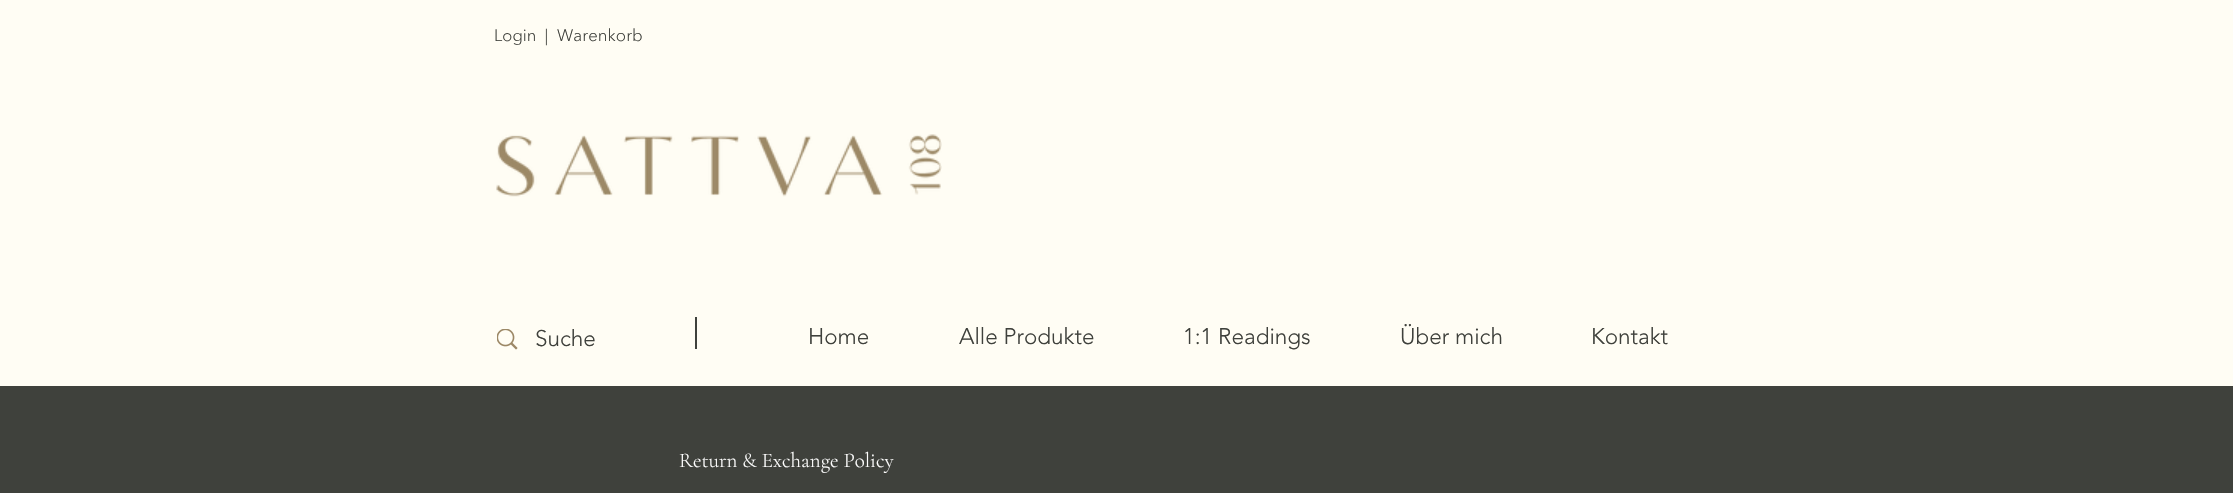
#include "include/core/SkBlurTypes.h"
#include "include/core/SkCanvas.h"
#include "include/core/SkData.h"
#include "include/core/SkFont.h"
#include "include/core/SkFontMgr.h"
#include "include/core/SkImage.h"
#include "include/core/SkMaskFilter.h"
#include "include/core/SkPaint.h"
#include "include/core/SkPathBuilder.h"
#include "include/core/SkTextBlob.h"
#include "include/effects/SkDashPathEffect.h"
#include "include/effects/SkGradientShader.h"
#include "include/utils/SkParsePath.h"

extern sk_sp<SkFontMgr> fontMgr;

void draw(SkCanvas* canvas) {
    SkPaint p;
    p.setAntiAlias(true);
    auto font = [&](const char* family, int weight, float size, bool italic = false) {
        SkFontStyle style(weight, SkFontStyle::kNormal_Width,
            italic ? SkFontStyle::kItalic_Slant : SkFontStyle::kUpright_Slant);
        SkFont result(fontMgr->matchFamilyStyle(family, style), size);
        result.setSubpixel(true);
        return result;
    };
    auto drawTracked = [&](const char* s, float x, float y, const SkFont& font, const SkPaint& ink, float letter, float word) {
        std::vector<SkGlyphID> glyphs(font.countText(s, strlen(s), SkTextEncoding::kUTF8));
        std::vector<float> xs(glyphs.size());
        font.textToGlyphs(s, strlen(s), SkTextEncoding::kUTF8, glyphs);
        font.getXPos(glyphs, xs, x);
        float extra = 0;
        for (size_t i = 0; i < glyphs.size(); i++) {
            xs[i] += extra;
            extra += letter + word * (glyphs[i] == font.unicharToGlyph(' '));
        }
        canvas->drawTextBlob(SkTextBlob::MakeFromPosHGlyphs(glyphs, xs, y, font), 0, 0, ink);
    };
    auto drawPhoto = [&](const char* path, float l, float t, float r, float b) {
        auto image = SkImages::DeferredFromEncodedData(SkData::MakeFromFileName(path));
        canvas->drawImageRect(image, SkRect::MakeLTRB(l, t, r, b), SkSamplingOptions());
    };
    canvas->clear(0xFF3F413C);
    p.setColor(0xFFFFFDF4);
    canvas->drawRect(SkRect::MakeLTRB(0, 0, 2233, 386), p);
    auto font1 = font("Avenir Next", 300, 16.5f);
    p.setColor(0xFF3F413C);
    canvas->drawString("Login  |", 494, 41, font1, p);
    auto font2 = font("Avenir Next", 300, 16.75f);
    drawTracked("Warenkorb", 557, 41, font2, p, 0.1f, 0);
    drawPhoto("media/1.png", 496, 134, 942, 197);
    drawPhoto("media/2.png", 497, 329, 518, 350);
    auto font3 = font("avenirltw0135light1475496", 300, 22.5f);
    canvas->drawString("Suche", 535, 346, font3, p);
    canvas->drawRect(SkRect::MakeLTRB(695, 317, 697, 349), p);
    {
        const struct { const char* s; float x, y; } items[] = {
            {"Home", 808, 344},
            {"Alle Produkte", 959, 344},
            {"1:1 Readings", 1183, 344},
            {"Über mich", 1400, 344},
            {"Kontakt", 1591, 344},
        };
        for (auto [s, x, y] : items) {
            canvas->drawString(s, x, y, font3, p);
        }
    }
    auto font4 = font("Cormorant Garamond", 300, 21);
    p.setColor(0xFFFFFFFF);
    canvas->drawString("Return & Exchange Policy", 679, 467, font4, p);
}
